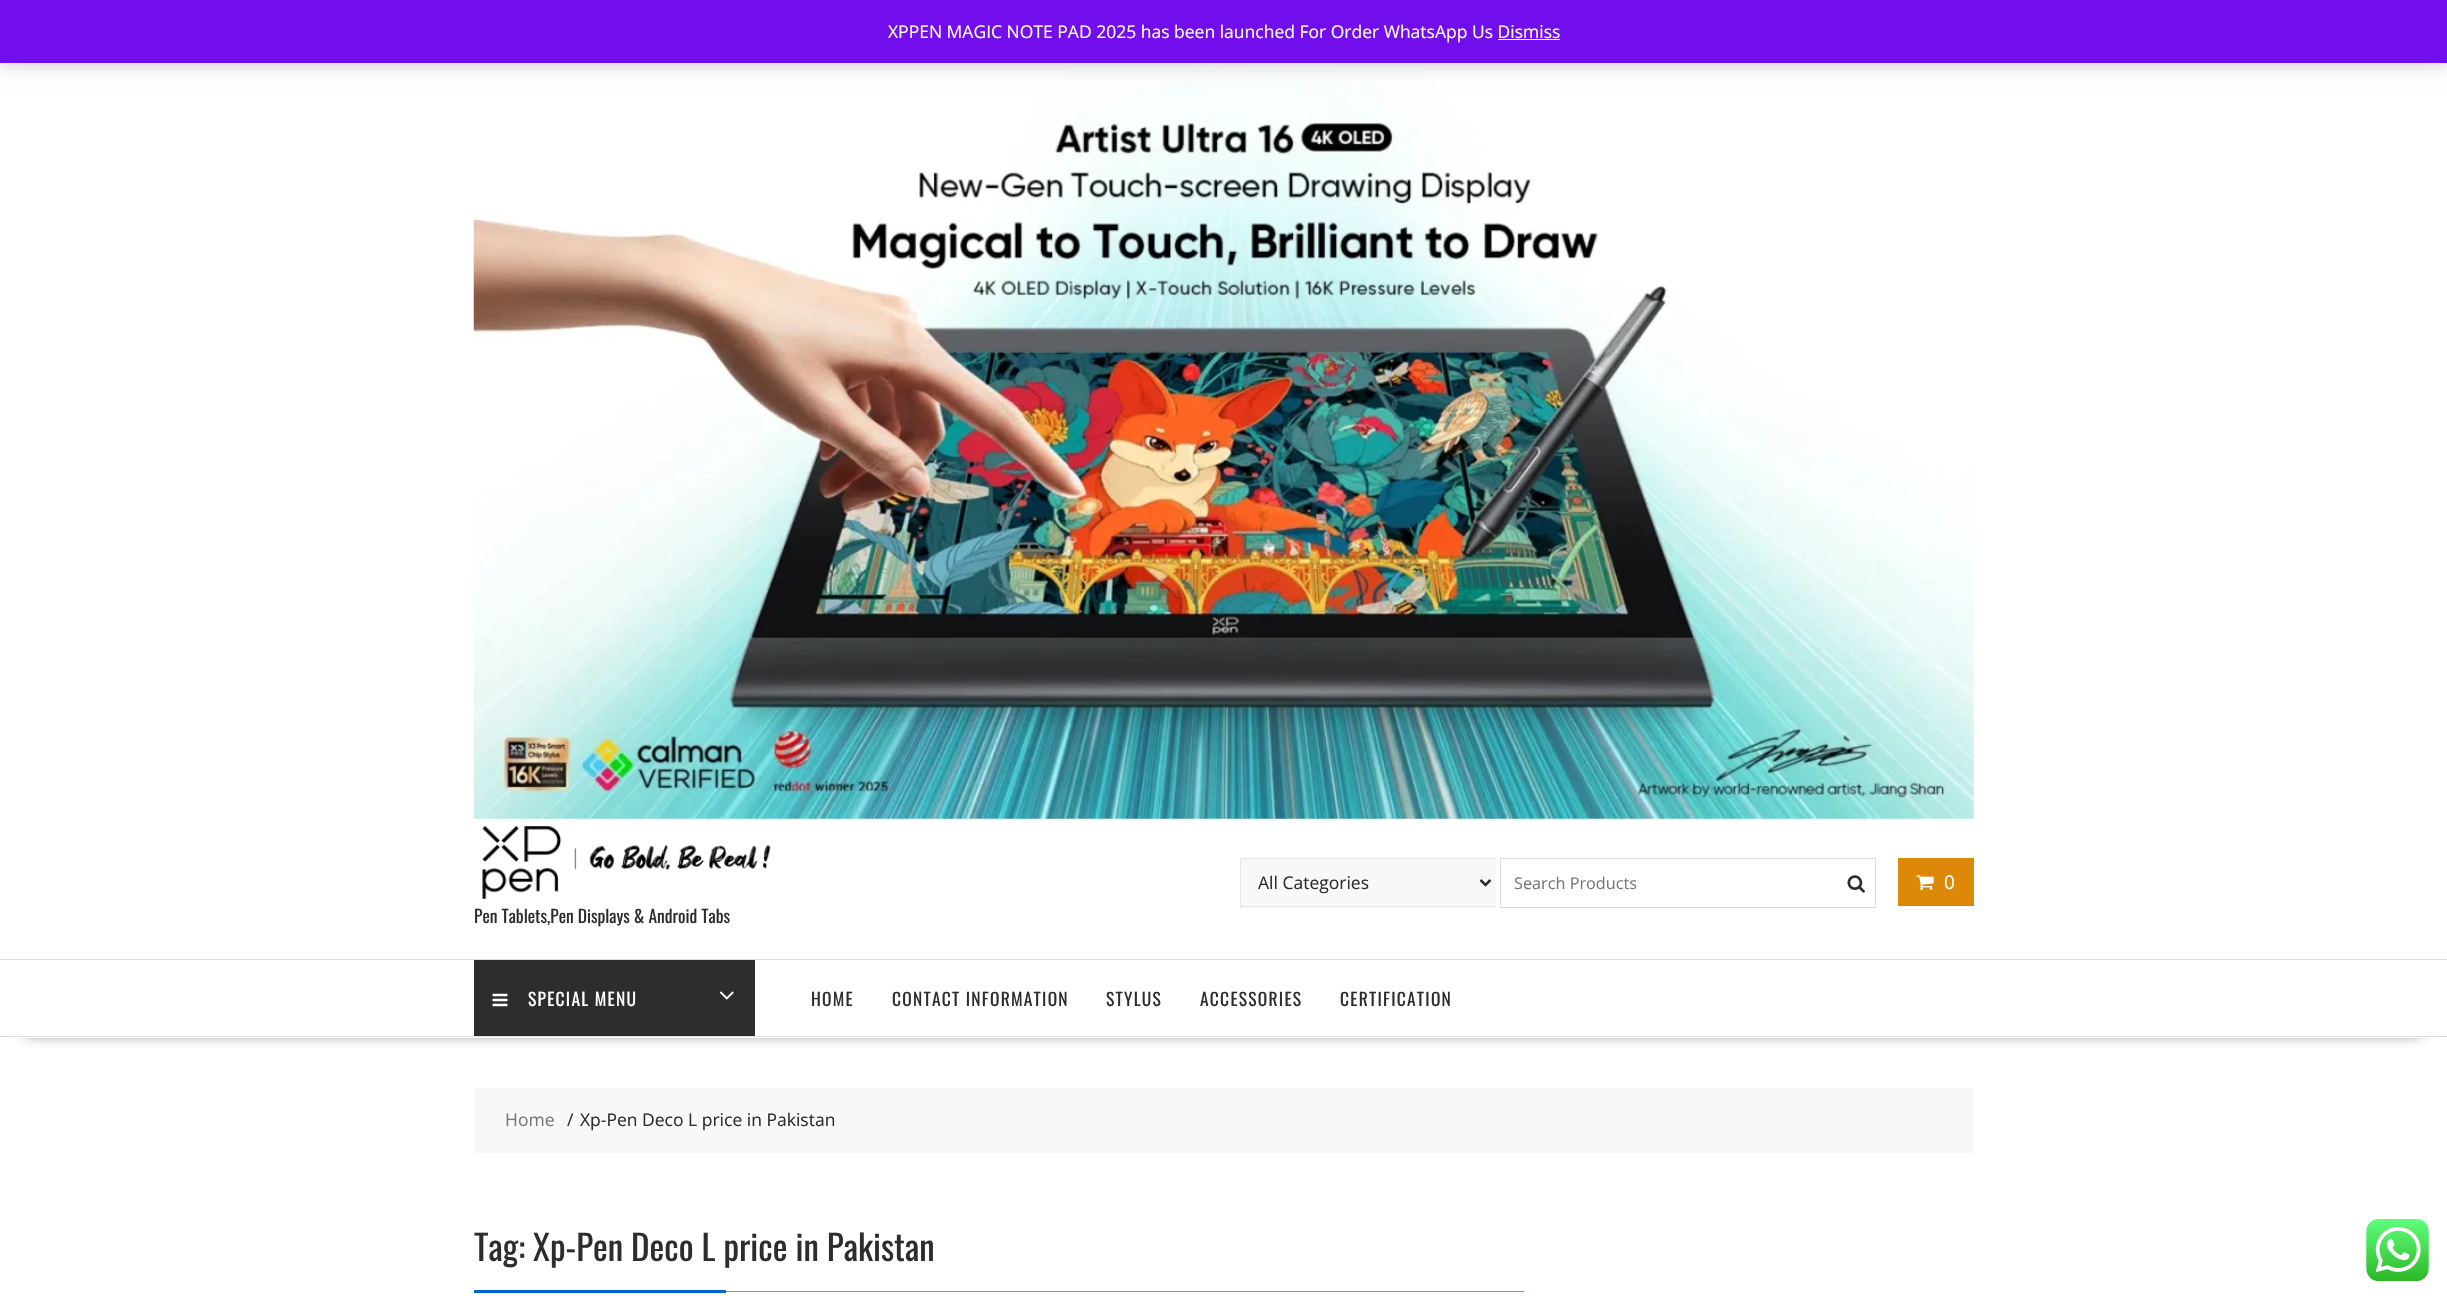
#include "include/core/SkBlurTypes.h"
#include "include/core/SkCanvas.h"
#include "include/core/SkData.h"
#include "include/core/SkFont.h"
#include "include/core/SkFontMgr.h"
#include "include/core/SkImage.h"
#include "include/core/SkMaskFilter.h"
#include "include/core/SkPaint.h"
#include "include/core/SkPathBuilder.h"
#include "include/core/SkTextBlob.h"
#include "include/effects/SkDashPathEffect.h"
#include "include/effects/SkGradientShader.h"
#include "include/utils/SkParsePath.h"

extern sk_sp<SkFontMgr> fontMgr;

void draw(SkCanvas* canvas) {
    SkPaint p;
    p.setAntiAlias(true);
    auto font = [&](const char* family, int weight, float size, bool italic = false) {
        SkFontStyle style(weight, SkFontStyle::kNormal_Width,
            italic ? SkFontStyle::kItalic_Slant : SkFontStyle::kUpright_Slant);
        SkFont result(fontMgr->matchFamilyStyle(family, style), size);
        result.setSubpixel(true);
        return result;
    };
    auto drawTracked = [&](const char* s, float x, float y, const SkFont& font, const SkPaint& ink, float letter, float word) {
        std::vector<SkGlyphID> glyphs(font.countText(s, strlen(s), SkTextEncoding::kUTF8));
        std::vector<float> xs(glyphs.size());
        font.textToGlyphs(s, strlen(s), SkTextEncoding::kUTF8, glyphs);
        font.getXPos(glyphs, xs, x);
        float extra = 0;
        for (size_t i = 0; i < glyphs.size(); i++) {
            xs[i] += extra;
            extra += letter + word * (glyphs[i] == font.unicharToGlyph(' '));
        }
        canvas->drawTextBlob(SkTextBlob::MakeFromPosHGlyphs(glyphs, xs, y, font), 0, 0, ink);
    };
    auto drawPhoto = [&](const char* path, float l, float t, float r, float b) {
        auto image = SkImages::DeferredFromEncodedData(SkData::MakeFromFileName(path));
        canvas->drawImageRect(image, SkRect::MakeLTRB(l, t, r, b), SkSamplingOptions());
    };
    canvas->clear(0xFFFFFFFF);
    drawPhoto("media/1.png", 473, 70, 1974, 819);
    p.setColor(0x33000000);
    p.setMaskFilter(SkMaskFilter::MakeBlur(kNormal_SkBlurStyle, 9));
    canvas->drawRect(SkRect::MakeLTRB(0, 1, 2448, 64), p);
    p.setMaskFilter(nullptr);
    p.setColor(0xFF720EEC);
    canvas->drawRect(SkRect::MakeLTRB(0, 0, 2447, 63), p);
    auto font1 = font("Open Sans", 400, 17.5f);
    p.setColor(0xFFFFFFFF);
    canvas->drawString("XPPEN MAGIC NOTE PAD 2025 has been launched For Order WhatsApp Us Dismiss", 888, 38, font1, p);
    {
        const struct { float l, t, r, b; SkColor color; } items[] = {
            {1498, 39, 1560, 40, 0xFFFCFBFE},
            {1241, 859, 1496, 908, 0xFFF8F8F8},
            {1240, 858, 1496, 859, 0xFFE7E7E7},
            {1240, 906, 1496, 907, 0xFFE7E7E7},
            {1240, 858, 1241, 908, 0xFFE7E7E7},
        };
        for (auto [l, t, r, b, color] : items) {
            p.setColor(color);
            canvas->drawRect(SkRect::MakeLTRB(l, t, r, b), p);
        }
    }
    p.setStyle(SkPaint::kStroke_Style);
    p.setStrokeWidth(2.5f);
    p.setColor(0xFF2D2D2D);
    canvas->drawPath(SkPathBuilder().moveTo(1480.5f, 880).lineTo(1485.5f, 885).lineTo(1490.5f, 880).detach(), p);
    p.setStyle(SkPaint::kFill_Style);
    canvas->drawString("All Categories", 1258, 889, font1, p);
    p.setStyle(SkPaint::kStroke_Style);
    p.setStrokeWidth(1);
    p.setColor(0xFFDDDDDD);
    canvas->drawRect(SkRect::MakeLTRB(1500.5f, 858.5f, 1875.5f, 907.5f), p);
    auto font2 = font("Open Sans", 400, 16.25f);
    p.setStyle(SkPaint::kFill_Style);
    p.setColor(0xFF777777);
    canvas->drawString("Search Products", 1514, 889, font2, p);
    drawPhoto("media/2.png", 1847, 875, 1865, 893);
    p.setColor(0xFFDD8808);
    canvas->drawRect(SkRect::MakeLTRB(1898, 858, 1974, 906), p);
    drawPhoto("media/3.png", 1916, 875, 1934, 891);
    auto font3 = font("Open Sans", 400, 19);
    p.setColor(0xFFFFFFFF);
    canvas->drawString("0", 1944, 889, font3, p);
    drawPhoto("media/4.png", 482, 826, 771, 899);
    auto font4 = font("Oswald", 400, 17.5f);
    p.setColor(0xFF2D2D2D);
    canvas->drawString("Pen Tablets,Pen Displays & Android Tabs", 474, 923, font4, p);
    p.setColor(0xBF000000);
    p.setMaskFilter(SkMaskFilter::MakeBlur(kNormal_SkBlurStyle, 7));
    canvas->drawRect(SkRect::MakeLTRB(26, 1006, 2421, 1033), p);
    p.setMaskFilter(nullptr);
    {
        const struct { float l, t, r, b; SkColor color; } items[] = {
            {11, 991, 2436, 1038, 0xFFFFFFFF},
            {0, 959, 2447, 960, 0xFFDEDEDE},
            {0, 1036, 2447, 1037, 0xFFDEDEDE},
            {474, 960, 755, 1036, 0xFF2D2D2D},
        };
        for (auto [l, t, r, b, color] : items) {
            p.setColor(color);
            canvas->drawRect(SkRect::MakeLTRB(l, t, r, b), p);
        }
    }
    drawPhoto("media/5.png", 492, 993, 508, 1007);
    p.setColor(0xFFFFFFFF);
    drawTracked("SPECIAL MENU", 528, 1006, font4, p, 1.25f, 0);
    drawPhoto("media/6.png", 719, 991, 734, 1000);
    p.setColor(0xFF2D2D2D);
    {
        const struct { const char* s; float x, y; } items[] = {
            {"HOME", 811, 1006},
            {"CONTACT INFORMATION", 892, 1006},
            {"STYLUS", 1106, 1006},
            {"ACCESSORIES", 1200, 1006},
            {"CERTIFICATION", 1340, 1006},
        };
        for (auto [s, x, y] : items) {
            drawTracked(s, x, y, font4, p, 1.25f, 0);
        }
    }
    p.setColor(0xFFF8F8F8);
    canvas->drawRect(SkRect::MakeLTRB(474, 1088, 1974, 1153), p);
    p.setColor(0xFF777777);
    canvas->drawString("Home", 505, 1126, font1, p);
    p.setColor(0xFF2D2D2D);
    canvas->drawString("/", 567, 1126, font1, p);
    canvas->drawString("Xp-Pen Deco L price in Pakistan", 580, 1126, font1, p);
    p.setColor(0xFFDD8808);
    canvas->drawRect(SkRect::MakeLTRB(726, 1291, 1524, 1292), p);
    auto font5 = font("Oswald", 400, 35);
    p.setColor(0xFF2D2D2D);
    canvas->drawString("Tag: Xp-Pen Deco L price in Pakistan", 474, 1261, font5, p);
    p.setColor(0xFF0263CA);
    canvas->drawRect(SkRect::MakeLTRB(474, 1290, 726, 1293), p);
    drawPhoto("media/7.png", 2366, 1219, 2429, 1281);
}
